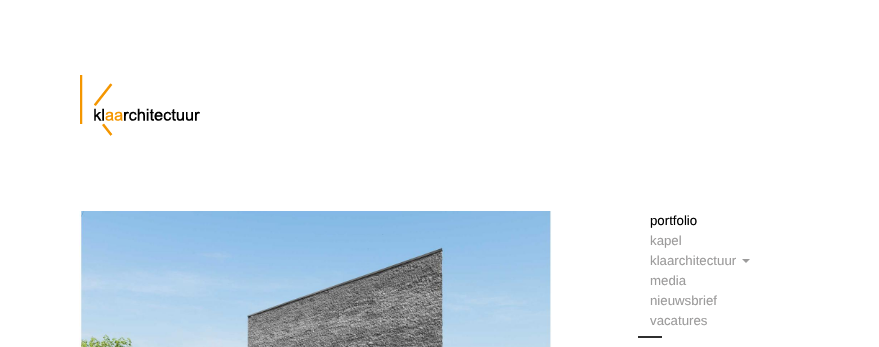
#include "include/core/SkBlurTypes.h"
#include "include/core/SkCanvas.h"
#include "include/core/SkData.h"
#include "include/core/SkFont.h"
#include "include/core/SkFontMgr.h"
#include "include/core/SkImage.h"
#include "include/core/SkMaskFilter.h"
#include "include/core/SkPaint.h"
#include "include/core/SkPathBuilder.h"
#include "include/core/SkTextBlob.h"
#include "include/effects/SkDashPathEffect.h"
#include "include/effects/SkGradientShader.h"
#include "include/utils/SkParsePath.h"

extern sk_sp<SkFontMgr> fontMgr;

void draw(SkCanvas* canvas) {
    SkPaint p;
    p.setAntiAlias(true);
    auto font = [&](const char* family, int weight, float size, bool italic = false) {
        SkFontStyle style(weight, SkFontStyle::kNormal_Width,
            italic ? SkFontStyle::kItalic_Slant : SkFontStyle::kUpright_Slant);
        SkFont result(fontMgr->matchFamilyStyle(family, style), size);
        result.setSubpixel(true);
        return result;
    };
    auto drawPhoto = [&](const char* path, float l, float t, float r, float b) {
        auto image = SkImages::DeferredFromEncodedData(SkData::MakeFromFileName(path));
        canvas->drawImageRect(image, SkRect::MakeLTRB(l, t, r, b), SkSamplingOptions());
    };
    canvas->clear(0xFFFFFFFF);
    drawPhoto("media/1.png", 80, 75, 200, 136);
    drawPhoto("media/2.png", 79, 211, 552, 347);
    auto font1 = font("Liberation Sans", 400, 13.25f);
    p.setColor(0xFF000000);
    canvas->drawString("portfolio", 650, 225, font1, p);
    p.setColor(0xFF9C9B9B);
    canvas->drawString("kapel", 650, 245, font1, p);
    canvas->drawString("klaarchitectuur", 650, 265, font1, p);
    canvas->drawPath(SkPathBuilder().moveTo(742, 259).lineTo(750, 259).lineTo(746, 263).close().detach(), p);
    {
        const struct { const char* s; float x, y; } items[] = {
            {"media", 650, 285},
            {"nieuwsbrief", 650, 305},
            {"vacatures", 650, 325},
        };
        for (auto [s, x, y] : items) {
            canvas->drawString(s, x, y, font1, p);
        }
    }
    p.setColor(0xFF2F2F2F);
    canvas->drawRect(SkRect::MakeLTRB(638, 336, 662, 338), p);
}
